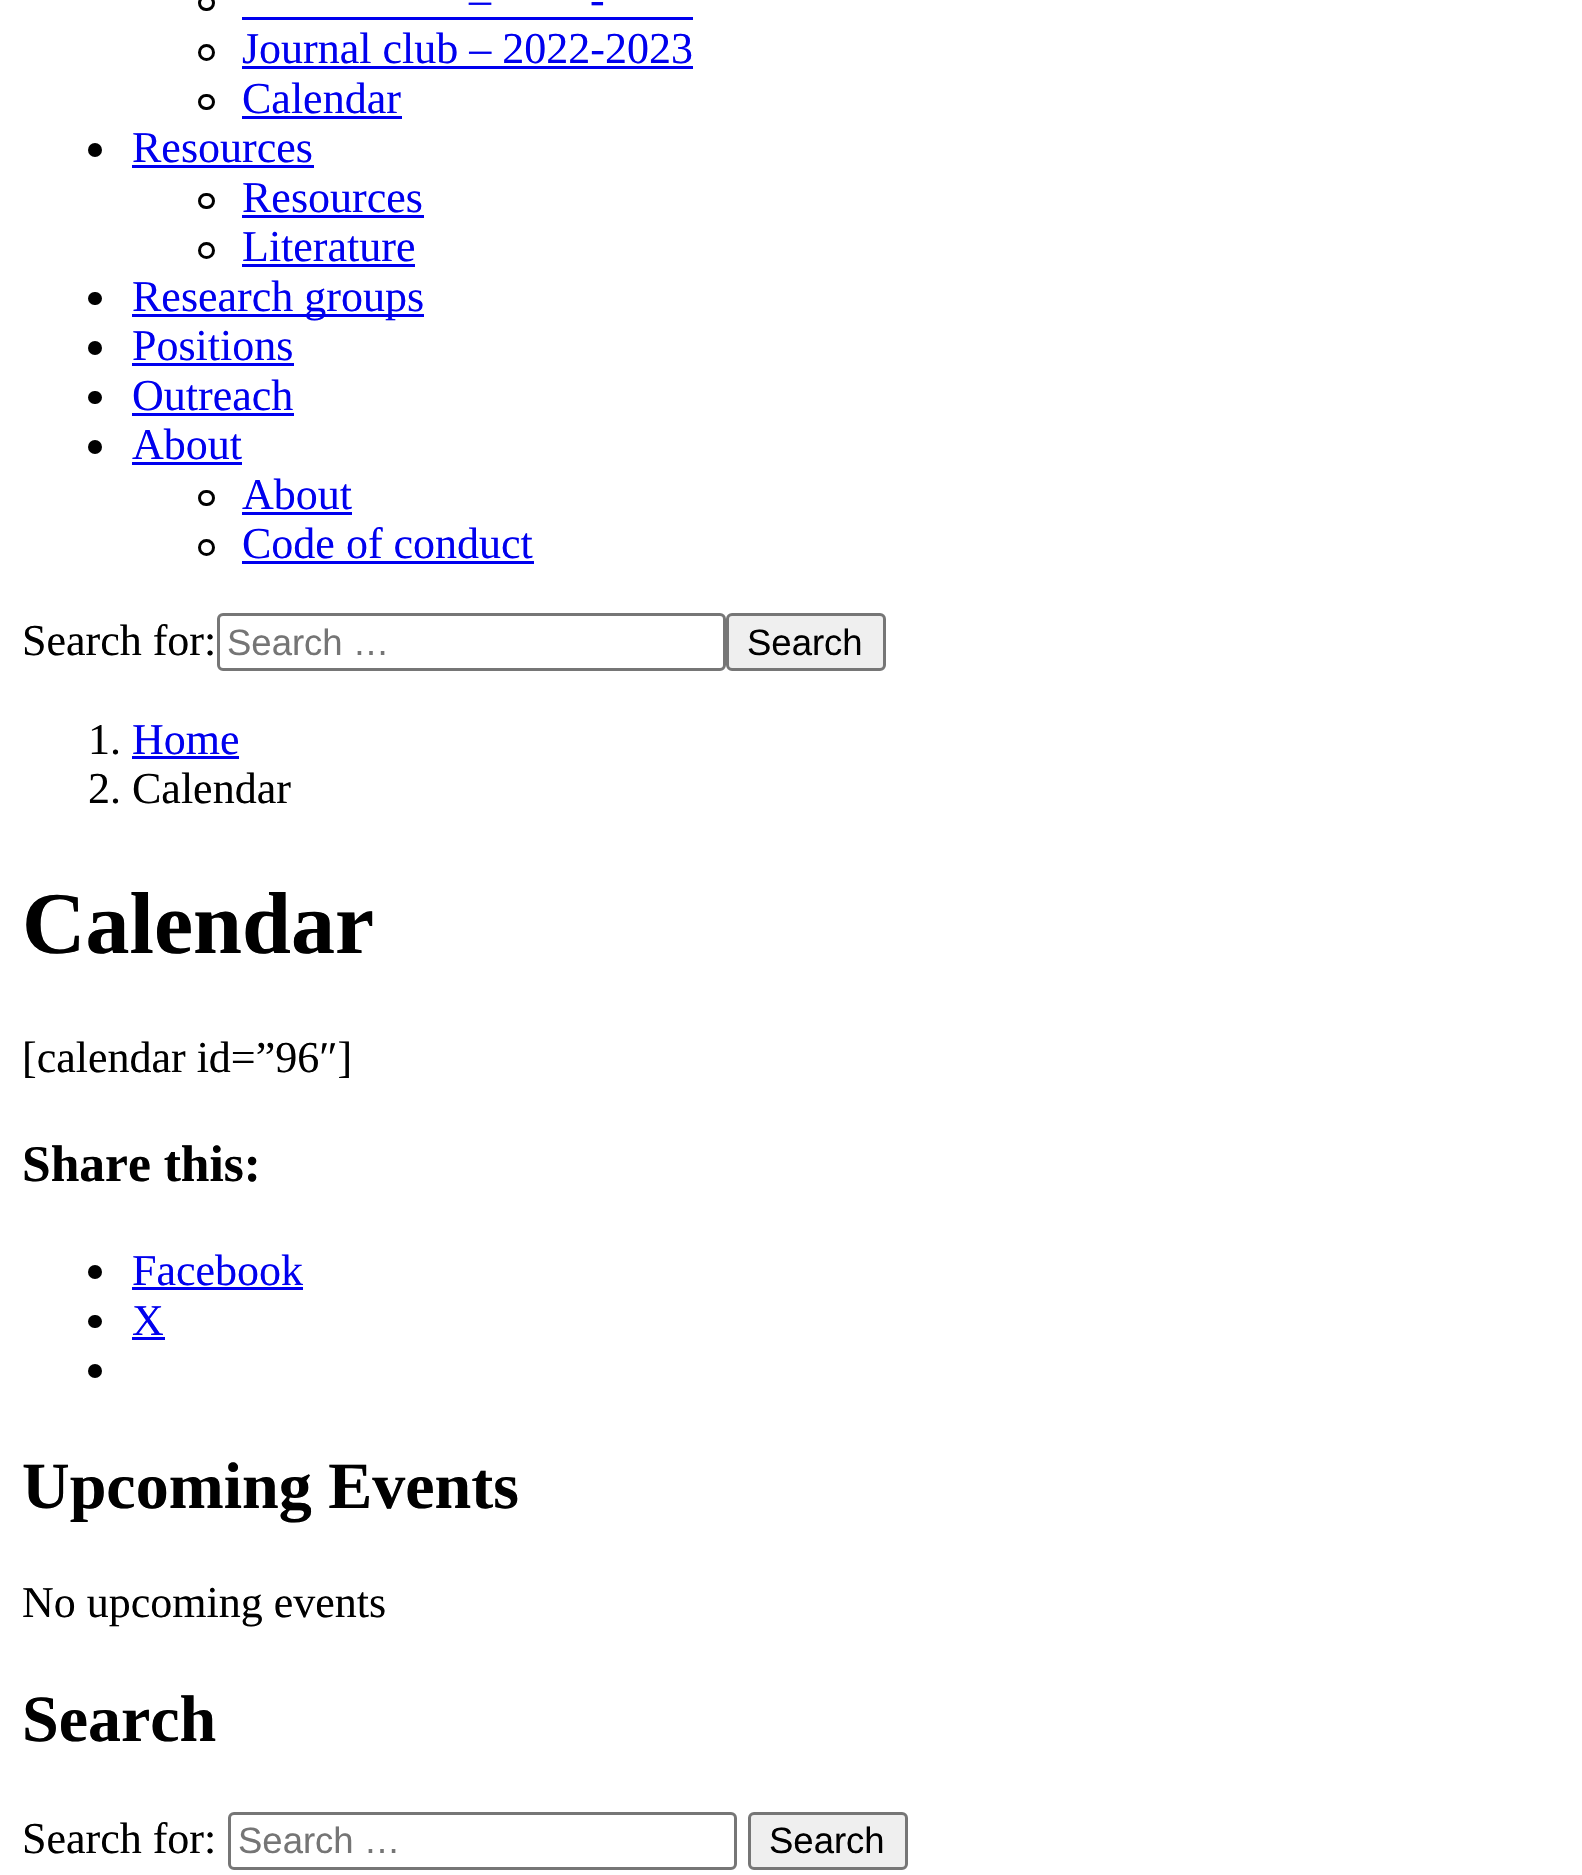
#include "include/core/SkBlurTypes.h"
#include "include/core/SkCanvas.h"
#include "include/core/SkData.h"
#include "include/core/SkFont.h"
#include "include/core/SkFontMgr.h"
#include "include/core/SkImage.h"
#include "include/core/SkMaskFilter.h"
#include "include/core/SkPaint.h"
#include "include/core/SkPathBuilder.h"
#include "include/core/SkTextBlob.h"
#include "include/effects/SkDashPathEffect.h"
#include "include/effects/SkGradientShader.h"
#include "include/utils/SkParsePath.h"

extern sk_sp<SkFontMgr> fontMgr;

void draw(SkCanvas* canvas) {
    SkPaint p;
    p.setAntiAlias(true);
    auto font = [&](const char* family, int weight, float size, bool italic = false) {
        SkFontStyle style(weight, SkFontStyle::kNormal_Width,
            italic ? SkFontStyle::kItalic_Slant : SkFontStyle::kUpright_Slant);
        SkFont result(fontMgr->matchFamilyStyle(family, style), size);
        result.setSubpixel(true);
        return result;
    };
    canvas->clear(0xFFFFFFFF);
    p.setStyle(SkPaint::kStroke_Style);
    p.setStrokeWidth(3);
    p.setColor(0xFF000000);
    canvas->drawRoundRect(SkRect::MakeLTRB(199.5f, -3.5f, 213.5f, 9.5f), 6.5f, 6.5f, p);
    auto font1 = font("Liberation Serif", 400, 44);
    p.setStyle(SkPaint::kFill_Style);
    p.setColor(0xFF0000EE);
    canvas->drawString("–", 469, 14, font1, p);
    canvas->drawRect(SkRect::MakeLTRB(242, 17, 693, 20), p);
    canvas->drawString("-", 590, 14, font1, p);
    p.setStyle(SkPaint::kStroke_Style);
    p.setColor(0xFF000000);
    canvas->drawCircle(206.5f, 52.5f, 7, p);
    p.setStyle(SkPaint::kFill_Style);
    p.setColor(0xFF0000EE);
    canvas->drawString("Journal club – 2022-2023", 242, 63, font1, p);
    canvas->drawRect(SkRect::MakeLTRB(242, 66, 693, 69), p);
    p.setStyle(SkPaint::kStroke_Style);
    p.setColor(0xFF000000);
    canvas->drawRoundRect(SkRect::MakeLTRB(199.5f, 95.5f, 213.5f, 108.5f), 6.5f, 6.5f, p);
    p.setStyle(SkPaint::kFill_Style);
    p.setColor(0xFF0000EE);
    canvas->drawString("Calendar", 242, 113, font1, p);
    canvas->drawRect(SkRect::MakeLTRB(242, 116, 402, 119), p);
    p.setColor(0xFF000000);
    canvas->drawCircle(95, 150, 7, p);
    p.setColor(0xFF0000EE);
    canvas->drawString("Resources", 132, 162, font1, p);
    canvas->drawRect(SkRect::MakeLTRB(132, 165, 314, 168), p);
    p.setStyle(SkPaint::kStroke_Style);
    p.setColor(0xFF000000);
    canvas->drawRoundRect(SkRect::MakeLTRB(199.5f, 194.5f, 213.5f, 207.5f), 6.5f, 6.5f, p);
    p.setStyle(SkPaint::kFill_Style);
    p.setColor(0xFF0000EE);
    canvas->drawString("Resources", 242, 212, font1, p);
    canvas->drawRect(SkRect::MakeLTRB(242, 215, 424, 218), p);
    p.setStyle(SkPaint::kStroke_Style);
    p.setColor(0xFF000000);
    canvas->drawCircle(206.5f, 250.5f, 7, p);
    p.setStyle(SkPaint::kFill_Style);
    p.setColor(0xFF0000EE);
    canvas->drawString("Literature", 242, 261, font1, p);
    canvas->drawRect(SkRect::MakeLTRB(242, 264, 415, 267), p);
    p.setColor(0xFF000000);
    canvas->drawRoundRect(SkRect::MakeLTRB(88, 292, 102, 305), 6.5f, 6.5f, p);
    p.setColor(0xFF0000EE);
    canvas->drawRect(SkRect::MakeLTRB(132, 314, 424, 317), p);
    canvas->drawString("Research groups", 132, 311, font1, p);
    p.setColor(0xFF000000);
    canvas->drawCircle(95, 348, 7, p);
    p.setColor(0xFF0000EE);
    canvas->drawString("Positions", 132, 360, font1, p);
    canvas->drawRect(SkRect::MakeLTRB(132, 363, 294, 366), p);
    p.setColor(0xFF000000);
    canvas->drawRoundRect(SkRect::MakeLTRB(88, 391, 102, 404), 6.5f, 6.5f, p);
    p.setColor(0xFF0000EE);
    canvas->drawString("Outreach", 132, 410, font1, p);
    canvas->drawRect(SkRect::MakeLTRB(132, 413, 294, 416), p);
    p.setColor(0xFF000000);
    canvas->drawCircle(95, 447, 7, p);
    p.setColor(0xFF0000EE);
    canvas->drawString("About", 132, 459, font1, p);
    canvas->drawRect(SkRect::MakeLTRB(132, 462, 242, 465), p);
    p.setStyle(SkPaint::kStroke_Style);
    p.setColor(0xFF000000);
    canvas->drawRoundRect(SkRect::MakeLTRB(199.5f, 491.5f, 213.5f, 504.5f), 6.5f, 6.5f, p);
    p.setStyle(SkPaint::kFill_Style);
    p.setColor(0xFF0000EE);
    canvas->drawString("About", 242, 509, font1, p);
    canvas->drawRect(SkRect::MakeLTRB(242, 512, 352, 515), p);
    p.setStyle(SkPaint::kStroke_Style);
    p.setColor(0xFF000000);
    canvas->drawCircle(206.5f, 547.5f, 7, p);
    p.setStyle(SkPaint::kFill_Style);
    p.setColor(0xFF0000EE);
    canvas->drawString("Code of conduct", 242, 558, font1, p);
    canvas->drawRect(SkRect::MakeLTRB(242, 561, 534, 564), p);
    p.setColor(0xFF000000);
    canvas->drawString("Search for:", 22, 655, font1, p);
    p.setStyle(SkPaint::kStroke_Style);
    p.setColor(0xFF767676);
    canvas->drawRoundRect(SkRect::MakeLTRB(218.5f, 614.5f, 724.5f, 669.5f), 4.5f, 4.5f, p);
    auto font2 = font("Liberation Sans", 400, 36.5f);
    p.setStyle(SkPaint::kFill_Style);
    p.setColor(0xFF757575);
    canvas->drawString("Search …", 227, 655, font2, p);
    p.setColor(0xFFEFEFEF);
    canvas->drawRoundRect(SkRect::MakeLTRB(727.5f, 614.5f, 884.5f, 669.5f), 4.5f, 4.5f, p);
    p.setStyle(SkPaint::kStroke_Style);
    p.setColor(0xFF767676);
    canvas->drawRoundRect(SkRect::MakeLTRB(727.5f, 614.5f, 884.5f, 669.5f), 4.5f, 4.5f, p);
    p.setStyle(SkPaint::kFill_Style);
    p.setColor(0xFF000000);
    canvas->drawString("Search", 747, 655, font2, p);
    canvas->drawString("1.", 88, 754, font1, p);
    p.setColor(0xFF0000EE);
    canvas->drawString("Home", 132, 754, font1, p);
    canvas->drawRect(SkRect::MakeLTRB(132, 756, 239, 759), p);
    p.setColor(0xFF000000);
    canvas->drawString("2. Calendar", 88, 803, font1, p);
    auto font3 = font("Liberation Serif", 700, 88);
    canvas->drawString("Calendar", 22, 953, font3, p);
    canvas->drawString("[calendar id=”96″]", 22, 1072, font1, p);
    auto font4 = font("Liberation Serif", 700, 51.5f);
    canvas->drawString("Share this:", 22, 1181, font4, p);
    canvas->drawCircle(95, 1272, 7, p);
    p.setColor(0xFF0000EE);
    canvas->drawString("Facebook", 132, 1285, font1, p);
    canvas->drawRect(SkRect::MakeLTRB(132, 1287, 303, 1290), p);
    p.setColor(0xFF000000);
    canvas->drawRoundRect(SkRect::MakeLTRB(88, 1315, 102, 1328), 6.5f, 6.5f, p);
    p.setColor(0xFF0000EE);
    canvas->drawString("X", 132, 1335, font1, p);
    canvas->drawRect(SkRect::MakeLTRB(132, 1337, 165, 1340), p);
    p.setColor(0xFF000000);
    canvas->drawCircle(95, 1371, 7, p);
    auto font5 = font("Liberation Serif", 700, 66);
    canvas->drawString("Upcoming Events", 22, 1508, font5, p);
    canvas->drawString("No upcoming events", 22, 1617, font1, p);
    canvas->drawString("Search", 22, 1741, font5, p);
    canvas->drawString("Search for:", 22, 1853, font1, p);
    p.setStyle(SkPaint::kStroke_Style);
    p.setColor(0xFF767676);
    canvas->drawRoundRect(SkRect::MakeLTRB(229.5f, 1813.5f, 735.5f, 1868.5f), 4.5f, 4.5f, p);
    p.setStyle(SkPaint::kFill_Style);
    p.setColor(0xFF757575);
    canvas->drawString("Search …", 238, 1853, font2, p);
    p.setColor(0xFFEFEFEF);
    canvas->drawRoundRect(SkRect::MakeLTRB(749.5f, 1813.5f, 906.5f, 1868.5f), 4.5f, 4.5f, p);
    p.setStyle(SkPaint::kStroke_Style);
    p.setColor(0xFF767676);
    canvas->drawRoundRect(SkRect::MakeLTRB(749.5f, 1813.5f, 906.5f, 1868.5f), 4.5f, 4.5f, p);
    p.setStyle(SkPaint::kFill_Style);
    p.setColor(0xFF000000);
    canvas->drawString("Search", 769, 1853, font2, p);
}
